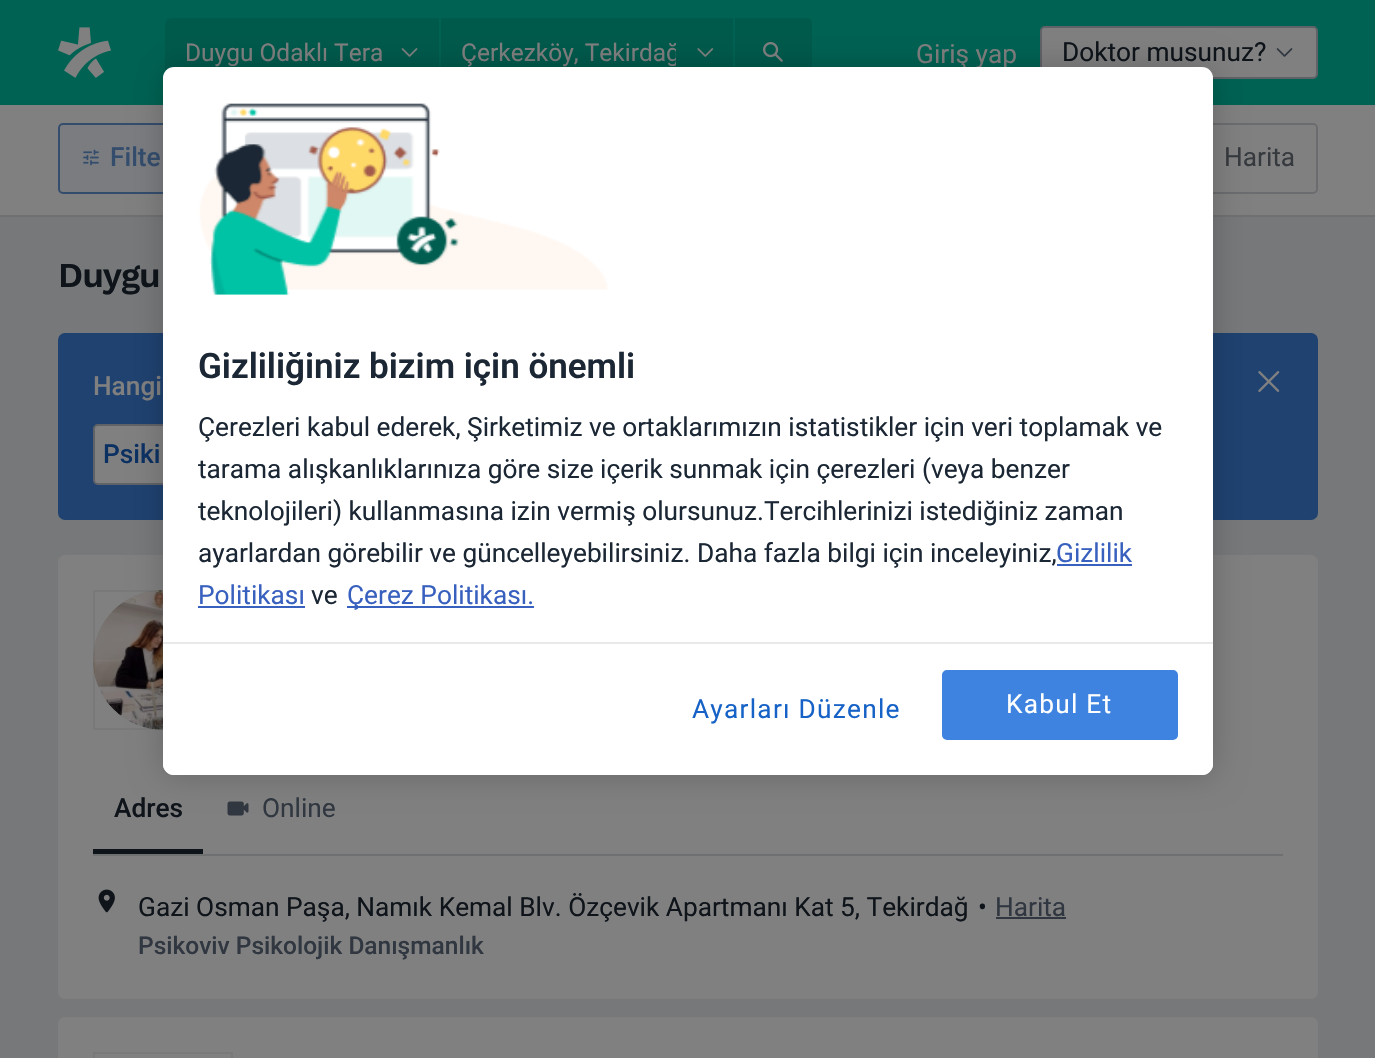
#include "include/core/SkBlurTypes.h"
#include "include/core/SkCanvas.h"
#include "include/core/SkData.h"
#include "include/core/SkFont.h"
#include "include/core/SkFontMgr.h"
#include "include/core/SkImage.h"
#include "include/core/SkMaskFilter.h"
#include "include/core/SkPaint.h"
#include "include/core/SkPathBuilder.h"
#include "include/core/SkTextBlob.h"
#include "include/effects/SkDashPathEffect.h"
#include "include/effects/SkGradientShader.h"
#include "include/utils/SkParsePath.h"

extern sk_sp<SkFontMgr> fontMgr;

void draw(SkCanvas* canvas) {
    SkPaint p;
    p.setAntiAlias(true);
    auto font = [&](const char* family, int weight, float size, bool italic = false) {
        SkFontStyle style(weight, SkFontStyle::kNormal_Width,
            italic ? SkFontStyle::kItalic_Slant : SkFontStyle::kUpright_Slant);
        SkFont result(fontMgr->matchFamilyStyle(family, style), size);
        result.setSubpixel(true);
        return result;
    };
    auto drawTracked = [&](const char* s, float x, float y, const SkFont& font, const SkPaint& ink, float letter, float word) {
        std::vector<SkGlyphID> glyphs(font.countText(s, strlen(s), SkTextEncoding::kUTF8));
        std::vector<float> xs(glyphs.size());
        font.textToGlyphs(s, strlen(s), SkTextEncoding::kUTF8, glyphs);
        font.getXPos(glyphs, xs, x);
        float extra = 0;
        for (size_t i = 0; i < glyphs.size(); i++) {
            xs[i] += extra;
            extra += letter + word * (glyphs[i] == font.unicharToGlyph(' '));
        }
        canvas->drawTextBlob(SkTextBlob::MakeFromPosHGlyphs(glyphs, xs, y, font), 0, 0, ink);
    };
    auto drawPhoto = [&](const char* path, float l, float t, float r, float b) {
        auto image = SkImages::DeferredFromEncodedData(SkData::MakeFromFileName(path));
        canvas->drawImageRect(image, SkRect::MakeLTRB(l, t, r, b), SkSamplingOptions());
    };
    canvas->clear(0xFF777879);
    p.setColor(0xFF006253);
    canvas->drawRect(SkRect::MakeLTRB(0, 0, 1375, 105), p);
    drawPhoto("media/1.png", 58, 27, 111, 78);
    p.setColor(0xFF005A4C);
    canvas->drawPath(SkPathBuilder().moveTo(172, 18).lineTo(439, 18).lineTo(439, 88).lineTo(172, 88).cubicTo(168, 88, 165, 85, 165, 81).lineTo(165, 25).cubicTo(165, 21, 168, 18, 172, 18).close().detach(), p);
    auto font1 = font("Roboto", 400, 24.5f);
    p.setColor(0xFF808080);
    canvas->drawString("Duygu Odaklı Tera", 185, 61, font1, p);
    drawPhoto("media/2.png", 401, 48, 418, 57);
    p.setColor(0xFF005A4C);
    canvas->drawRect(SkRect::MakeLTRB(441, 18, 733, 67), p);
    canvas->save();
    canvas->clipRect(SkRect::MakeLTRB(460, 39, 676, 67));
    p.setColor(0xFF808080);
    canvas->drawString("Çerkezköy, Tekirdağ", 461, 61, font1, p);
    canvas->restore();
    drawPhoto("media/3.png", 697, 48, 714, 57);
    p.setColor(0xFF005A4C);
    canvas->drawPath(SkPathBuilder().moveTo(735, 18).lineTo(807, 18).cubicTo(810, 18, 812, 20, 812, 23).lineTo(812, 83).cubicTo(812, 86, 810, 88, 807, 88).lineTo(735, 88).close().detach(), p);
    drawPhoto("media/4.png", 763, 42, 783, 62);
    auto font2 = font("Roboto", 400, 26.25f);
    p.setColor(0xFF808080);
    canvas->drawString("Giriş yap", 916, 63, font2, p);
    canvas->drawRoundRect(SkRect::MakeLTRB(1041, 27, 1317, 78), 4, 4, p);
    p.setStyle(SkPaint::kStroke_Style);
    p.setStrokeWidth(2);
    p.setColor(0xFF5F6266);
    canvas->drawRoundRect(SkRect::MakeLTRB(1041, 27, 1317, 78), 4, 4, p);
    p.setStyle(SkPaint::kFill_Style);
    p.setColor(0xFF0E141A);
    canvas->drawString("Doktor musunuz?", 1062, 61, font2, p);
    drawPhoto("media/5.png", 1276, 48, 1293, 57);
    p.setColor(0xFF808080);
    canvas->drawRect(SkRect::MakeLTRB(0, 105, 1375, 215), p);
    p.setColor(0xFF6E7072);
    canvas->drawRect(SkRect::MakeLTRB(0, 215, 1375, 217), p);
    p.setColor(0xFF7A7C7F);
    canvas->drawRoundRect(SkRect::MakeLTRB(59, 124, 274, 193), 4, 4, p);
    p.setStyle(SkPaint::kStroke_Style);
    p.setColor(0xFF344D6D);
    canvas->drawRoundRect(SkRect::MakeLTRB(59, 124, 274, 193), 4, 4, p);
    drawPhoto("media/6.png", 83, 149, 99, 166);
    auto font3 = font("Roboto", 500, 26.25f);
    p.setStyle(SkPaint::kFill_Style);
    canvas->drawString("Filte", 110, 166, font3, p);
    p.setStyle(SkPaint::kStroke_Style);
    p.setColor(0xFF6B6C6F);
    canvas->drawRoundRect(SkRect::MakeLTRB(1172, 124, 1317, 193), 4, 4, p);
    p.setStyle(SkPaint::kFill_Style);
    p.setColor(0xFF363A3E);
    canvas->drawString("Harita", 1224, 166, font2, p);
    auto font4 = font("Work Sans", 600, 35);
    p.setColor(0xFF0E141A);
    drawTracked("Duygu", 58, 287, font4, p, -1, 0);
    p.setColor(0xFF1F4270);
    canvas->drawRoundRect(SkRect::MakeLTRB(58, 333, 1318, 520), 7, 7, p);
    p.setColor(0xFF808080);
    canvas->drawString("Hangi", 93, 395, font3, p);
    drawPhoto("media/7.png", 1258, 371, 1280, 392);
    canvas->drawRoundRect(SkRect::MakeLTRB(94, 425, 221, 484), 4, 4, p);
    p.setStyle(SkPaint::kStroke_Style);
    p.setColor(0xFF5F6266);
    canvas->drawRoundRect(SkRect::MakeLTRB(94, 425, 221, 484), 4, 4, p);
    p.setStyle(SkPaint::kFill_Style);
    p.setColor(0xFF0B3163);
    canvas->drawString("Psiki", 103, 463, font3, p);
    p.setColor(0xFF808080);
    canvas->drawRoundRect(SkRect::MakeLTRB(58, 555, 1318, 999), 7, 7, p);
    drawPhoto("media/8.png", 93, 590, 163, 730);
    drawPhoto("media/9.png", 93, 590, 163, 730);
    p.setStyle(SkPaint::kStroke_Style);
    p.setColor(0x0D000000);
    canvas->drawRect(SkRect::MakeLTRB(94, 591, 232, 729), p);
    p.setStyle(SkPaint::kFill_Style);
    p.setColor(0xFF6E7072);
    canvas->drawRect(SkRect::MakeLTRB(93, 854, 1283, 856), p);
    p.setColor(0xFF0E141A);
    canvas->drawRect(SkRect::MakeLTRB(93, 849, 203, 854), p);
    canvas->drawString("Adres", 114, 817, font3, p);
    drawPhoto("media/10.png", 227, 801, 249, 816);
    p.setColor(0xFF303740);
    canvas->drawString("Online", 262, 817, font2, p);
    drawPhoto("media/11.png", 98, 889, 115, 913);
    p.setColor(0xFF0E141A);
    canvas->drawString("Gazi Osman Paşa, Namık Kemal Blv. Özçevik Apartmanı Kat 5, Tekirdağ", 138, 916, font2, p);
    canvas->drawString("•", 978, 916, font2, p);
    p.setColor(0xFF303740);
    canvas->drawString("Harita", 995, 916, font2, p);
    canvas->drawRect(SkRect::MakeLTRB(996, 917, 1066, 919), p);
    auto font5 = font("Roboto", 500, 24.5f);
    canvas->drawString("Psikoviv Psikolojik Danışmanlık", 138, 954, font5, p);
    p.setColor(0xFF808080);
    canvas->drawRoundRect(SkRect::MakeLTRB(58, 1017, 1318, 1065), 7, 7, p);
    drawPhoto("media/12.png", 135, 1052, 191, 1058);
    drawPhoto("media/13.png", 135, 1052, 190, 1058);
    p.setStyle(SkPaint::kStroke_Style);
    p.setColor(0x0D000000);
    canvas->drawRect(SkRect::MakeLTRB(94, 1053, 232, 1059), p);
    p.setStyle(SkPaint::kFill_Style);
    p.setColor(0x33000000);
    p.setMaskFilter(SkMaskFilter::MakeBlur(kNormal_SkBlurStyle, 16));
    canvas->drawRoundRect(SkRect::MakeLTRB(163, 67, 1213, 775), 11, 11, p);
    p.setMaskFilter(nullptr);
    p.setColor(0xFFFFFFFF);
    canvas->drawRoundRect(SkRect::MakeLTRB(163, 67, 1213, 775), 11, 11, p);
    drawPhoto("media/14.png", 199, 103, 608, 295);
    auto font6 = font("Roboto", 600, 35);
    p.setColor(0xFF1B2734);
    canvas->drawString("Gizliliğiniz bizim için önemli", 198, 378, font6, p);
    {
        const struct { const char* s; float x, y; } items[] = {
            {"Çerezleri kabul ederek, Şirketimiz ve ortaklarımızın istatistikler için veri toplamak ve", 198, 436},
            {"tarama alışkanlıklarınıza göre size içerik sunmak için çerezleri (veya benzer", 198, 478},
            {"teknolojileri) kullanmasına izin vermiş olursunuz.Tercihlerinizi istediğiniz zaman", 198, 520},
            {"ayarlardan görebilir ve güncelleyebilirsiniz. Daha fazla bilgi için inceleyiniz,", 198, 562},
        };
        for (auto [s, x, y] : items) {
            canvas->drawString(s, x, y, font2, p);
        }
    }
    p.setColor(0xFF3860BE);
    canvas->drawString("Gizlilik", 1056, 562, font2, p);
    canvas->drawRect(SkRect::MakeLTRB(1057, 564, 1132, 566), p);
    canvas->drawString("Politikası", 198, 604, font2, p);
    canvas->drawRect(SkRect::MakeLTRB(198, 606, 305, 608), p);
    p.setColor(0xFF1B2734);
    canvas->drawString("ve", 311, 604, font2, p);
    p.setColor(0xFF3860BE);
    canvas->drawRect(SkRect::MakeLTRB(347, 606, 534, 608), p);
    canvas->drawString("Çerez Politikası.", 347, 604, font2, p);
    p.setColor(0xFFFFFFFF);
    canvas->drawPath(SkPathBuilder().moveTo(163, 642).lineTo(1213, 642).lineTo(1213, 764).cubicTo(1213, 770, 1208, 775, 1202, 775).lineTo(174, 775).cubicTo(168, 775, 163, 770, 163, 764).close().detach(), p);
    p.setColor(0xFFE9E9E9);
    canvas->drawRect(SkRect::MakeLTRB(163, 642, 1213, 644), p);
    p.setColor(0xFF1662C6);
    drawTracked("Ayarları Düzenle", 692, 718, font2, p, 1.25f, 0);
    p.setColor(0xFF3D83DF);
    canvas->drawRoundRect(SkRect::MakeLTRB(943, 671, 1177, 739), 4, 4, p);
    p.setStyle(SkPaint::kStroke_Style);
    canvas->drawRoundRect(SkRect::MakeLTRB(943, 671, 1177, 739), 4, 4, p);
    p.setStyle(SkPaint::kFill_Style);
    p.setColor(0xFFFFFFFF);
    drawTracked("Kabul Et", 1006, 713, font2, p, 1.25f, 0);
}
